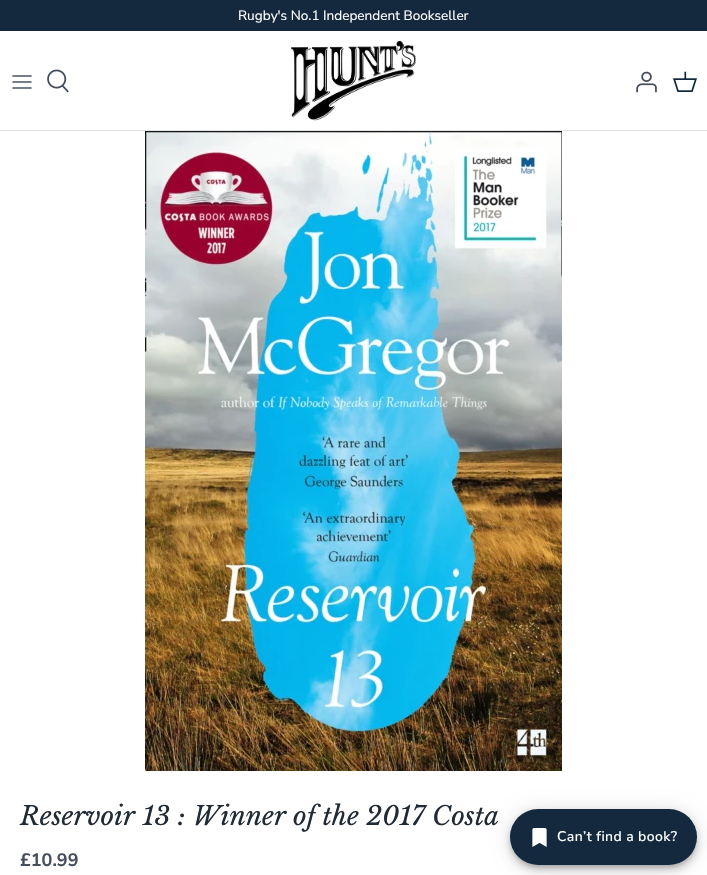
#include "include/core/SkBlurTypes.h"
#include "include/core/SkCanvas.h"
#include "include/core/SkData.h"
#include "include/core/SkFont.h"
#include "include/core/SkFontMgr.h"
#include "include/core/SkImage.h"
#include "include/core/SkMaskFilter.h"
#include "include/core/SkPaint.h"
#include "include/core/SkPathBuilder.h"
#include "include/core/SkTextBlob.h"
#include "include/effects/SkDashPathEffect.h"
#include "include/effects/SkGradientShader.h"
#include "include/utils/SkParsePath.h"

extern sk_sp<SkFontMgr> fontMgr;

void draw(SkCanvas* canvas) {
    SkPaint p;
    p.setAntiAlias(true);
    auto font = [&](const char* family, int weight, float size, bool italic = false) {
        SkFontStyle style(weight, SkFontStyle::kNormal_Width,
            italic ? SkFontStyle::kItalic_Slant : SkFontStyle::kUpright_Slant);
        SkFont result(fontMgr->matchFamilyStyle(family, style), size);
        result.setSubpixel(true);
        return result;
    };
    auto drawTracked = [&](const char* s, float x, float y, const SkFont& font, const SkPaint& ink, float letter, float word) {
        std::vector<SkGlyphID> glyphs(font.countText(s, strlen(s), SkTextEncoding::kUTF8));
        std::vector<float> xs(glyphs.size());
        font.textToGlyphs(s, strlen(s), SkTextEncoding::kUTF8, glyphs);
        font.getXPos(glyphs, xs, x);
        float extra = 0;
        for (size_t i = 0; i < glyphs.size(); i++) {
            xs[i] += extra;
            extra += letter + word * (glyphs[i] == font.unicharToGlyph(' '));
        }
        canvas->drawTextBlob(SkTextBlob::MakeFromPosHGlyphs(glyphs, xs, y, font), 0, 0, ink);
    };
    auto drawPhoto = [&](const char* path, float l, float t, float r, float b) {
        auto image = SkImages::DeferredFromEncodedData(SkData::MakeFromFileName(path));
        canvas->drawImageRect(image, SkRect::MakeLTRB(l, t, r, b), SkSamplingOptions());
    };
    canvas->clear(0xFFFFFFFF);
    p.setColor(0xFF14293E);
    canvas->drawRect(SkRect::MakeLTRB(0, 0, 707, 31), p);
    auto font1 = font("Nunito Sans", 400, 13.6f);
    p.setColor(0xFFFFFFFF);
    canvas->drawString("Rugby's No.1 Independent Bookseller", 238, 20, font1, p);
    p.setColor(0xFFDFE3E8);
    canvas->drawRect(SkRect::MakeLTRB(0, 130, 707, 131), p);
    drawPhoto("media/1.png", 12, 75, 32, 89);
    drawPhoto("media/2.png", 47, 69, 69, 93);
    drawPhoto("media/3.png", 291, 41, 416, 121);
    drawPhoto("media/4.png", 636, 71, 657, 93);
    drawPhoto("media/5.png", 673, 71, 697, 92);
    drawPhoto("media/6.png", 145, 131, 562, 771);
    auto font2 = font("Libre Baskerville", 400, 26, true);
    p.setColor(0xFF212B36);
    canvas->drawString("Reservoir 13 : Winner of the 2017 Costa", 20, 825, font2, p);
    auto font3 = font("Nunito Sans", 700, 18);
    p.setColor(0xFF454F5B);
    canvas->drawString("£10.99", 20, 866, font3, p);
    p.setColor(0x1F000000);
    p.setMaskFilter(SkMaskFilter::MakeBlur(kNormal_SkBlurStyle, 9));
    canvas->drawRoundRect(SkRect::MakeLTRB(510, 810, 697, 866), 28, 28, p);
    p.setMaskFilter(nullptr);
    p.setColor(0x24000000);
    p.setMaskFilter(SkMaskFilter::MakeBlur(kNormal_SkBlurStyle, 5));
    canvas->drawRoundRect(SkRect::MakeLTRB(510, 815, 697, 871), 28, 28, p);
    p.setMaskFilter(nullptr);
    p.setColor(0x33000000);
    p.setMaskFilter(SkMaskFilter::MakeBlur(kNormal_SkBlurStyle, 2.5f));
    canvas->drawRoundRect(SkRect::MakeLTRB(511, 813, 696, 867), 27, 27, p);
    p.setMaskFilter(nullptr);
    p.setColor(0xFF14293E);
    canvas->drawRoundRect(SkRect::MakeLTRB(510, 809, 697, 865), 28, 28, p);
    drawPhoto("media/7.png", 532, 828, 547, 847);
    auto font4 = font("Nunito Sans", 500, 14);
    p.setColor(0xFFFFFFFF);
    drawTracked("Can’t find a book?", 557, 841, font4, p, 0.4f, 0);
}
